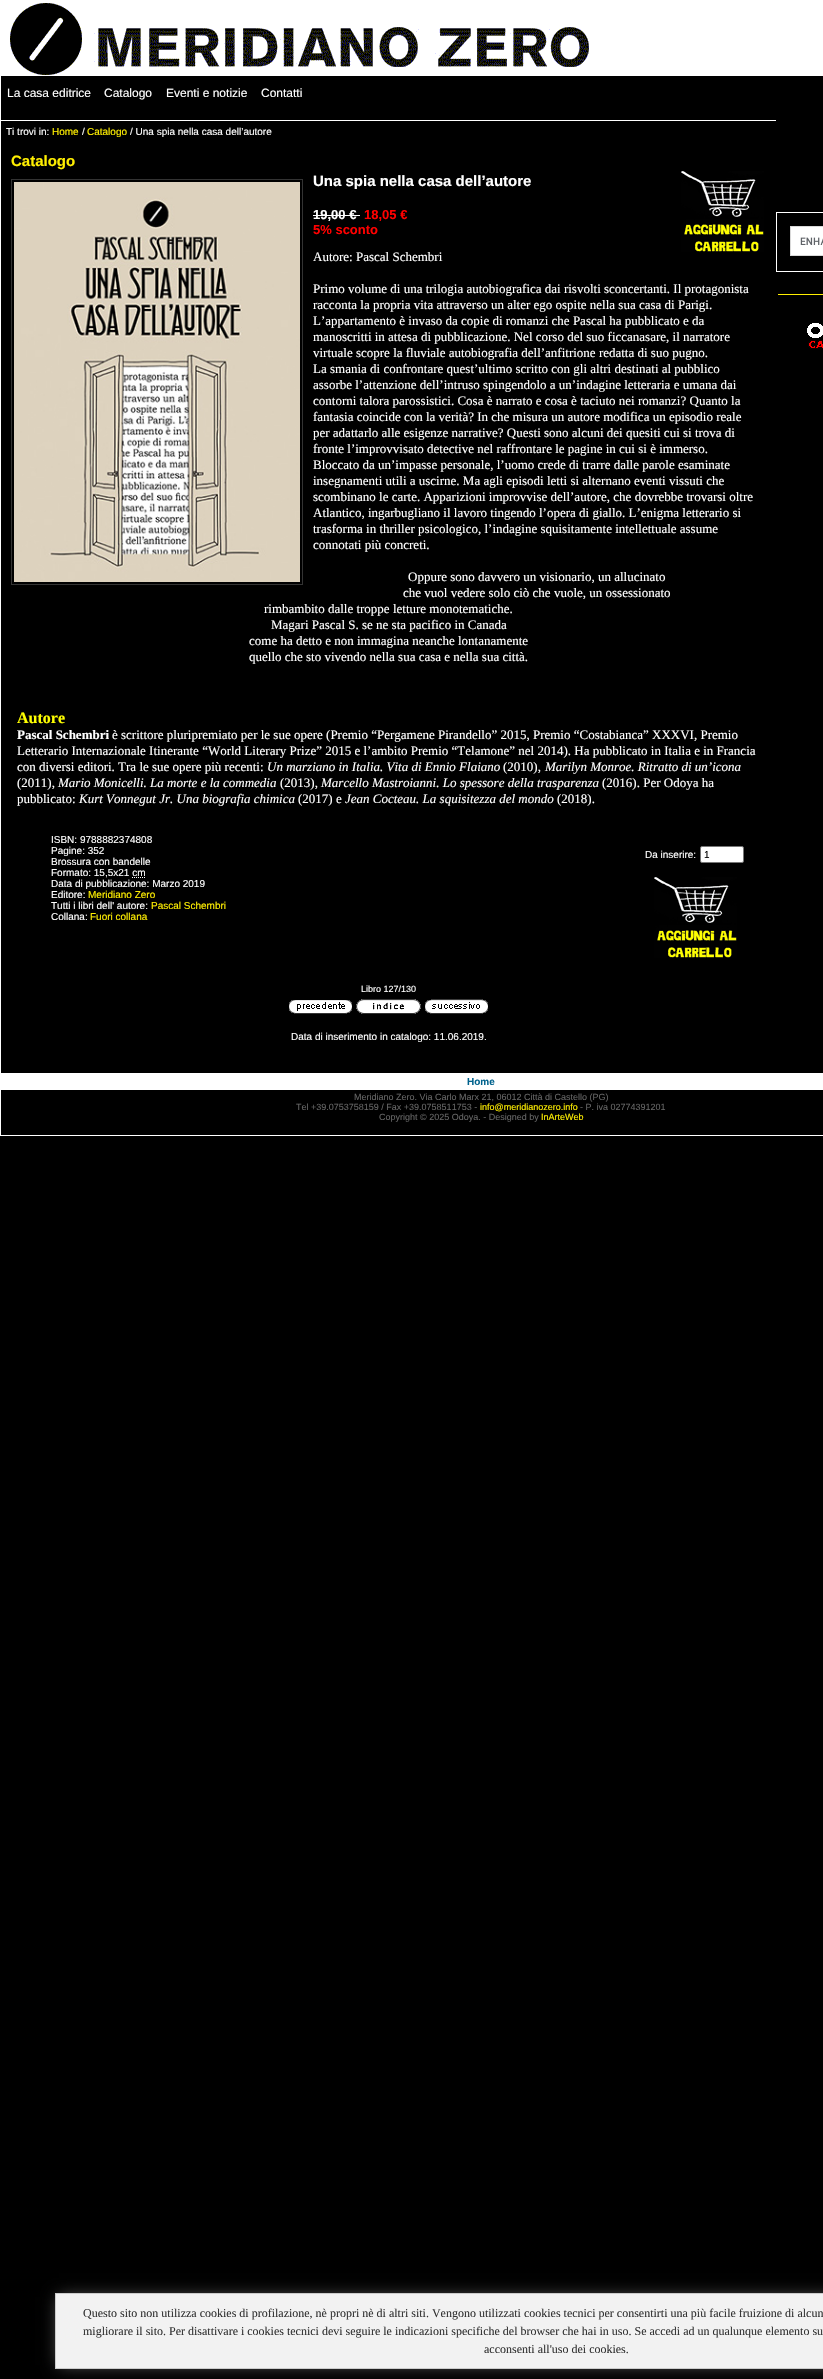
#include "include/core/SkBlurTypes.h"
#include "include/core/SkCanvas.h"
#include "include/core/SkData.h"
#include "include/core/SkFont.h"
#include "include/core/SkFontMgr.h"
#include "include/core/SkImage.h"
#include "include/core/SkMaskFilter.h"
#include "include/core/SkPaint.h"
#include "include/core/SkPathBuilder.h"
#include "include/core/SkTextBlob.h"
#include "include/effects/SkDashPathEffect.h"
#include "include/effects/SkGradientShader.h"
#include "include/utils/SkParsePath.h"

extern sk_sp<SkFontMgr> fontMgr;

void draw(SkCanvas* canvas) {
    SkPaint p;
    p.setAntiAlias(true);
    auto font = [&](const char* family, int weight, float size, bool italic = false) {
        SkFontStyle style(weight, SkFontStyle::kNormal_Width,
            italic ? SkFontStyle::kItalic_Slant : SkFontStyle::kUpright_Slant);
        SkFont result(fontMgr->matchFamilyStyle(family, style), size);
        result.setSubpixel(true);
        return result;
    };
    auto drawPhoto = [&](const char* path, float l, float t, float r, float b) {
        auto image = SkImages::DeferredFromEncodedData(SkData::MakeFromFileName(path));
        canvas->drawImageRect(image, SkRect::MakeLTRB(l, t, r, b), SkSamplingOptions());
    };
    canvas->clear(0xFF000000);
    p.setStyle(SkPaint::kStroke_Style);
    p.setStrokeWidth(1);
    p.setColor(0xFFFFFFFF);
    canvas->drawRect(SkRect::MakeLTRB(0.5f, 0.5f, 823.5f, 1135.5f), p);
    p.setStyle(SkPaint::kFill_Style);
    canvas->drawRect(SkRect::MakeLTRB(1, 1, 823, 76), p);
    drawPhoto("media/1.png", 10, 3, 589, 75);
    auto font1 = font("Liberation Sans", 400, 12);
    {
        const struct { const char* s; float x, y; } items[] = {
            {"La casa editrice", 7, 97},
            {"Catalogo", 104, 97},
            {"Eventi e notizie", 166, 97},
            {"Contatti", 261, 97},
        };
        for (auto [s, x, y] : items) {
            canvas->drawString(s, x, y, font1, p);
        }
    }
    canvas->drawRect(SkRect::MakeLTRB(1, 120, 776, 121), p);
    auto font2 = font("Liberation Sans", 400, 10);
    canvas->drawString("Ti trovi in:", 6, 135, font2, p);
    p.setColor(0xFFFFEF01);
    canvas->drawString("Home", 52, 135, font2, p);
    p.setColor(0xFFFFFFFF);
    canvas->drawString("/", 82, 135, font2, p);
    p.setColor(0xFFFFEF01);
    canvas->drawString("Catalogo", 87, 135, font2, p);
    p.setColor(0xFFFFFFFF);
    canvas->drawString("/ Una spia nella casa dell’autore", 130, 135, font2, p);
    auto font3 = font("Liberation Sans", 700, 15);
    p.setColor(0xFFFFEF01);
    canvas->drawString("Catalogo", 11, 166, font3, p);
    p.setStyle(SkPaint::kStroke_Style);
    p.setColor(0xFF333333);
    canvas->drawRect(SkRect::MakeLTRB(11.5f, 179.5f, 302.5f, 584.5f), p);
    drawPhoto("media/2.png", 14, 182, 300, 582);
    p.setStyle(SkPaint::kFill_Style);
    p.setColor(0xFFFFFFFF);
    canvas->drawString("Una spia nella casa dell’autore", 313, 186, font3, p);
    drawPhoto("media/3.png", 681, 171, 764, 252);
    auto font4 = font("Liberation Sans", 700, 13);
    canvas->drawString("19,00 €", 313, 219, font4, p);
    canvas->drawRect(SkRect::MakeLTRB(313, 215, 360, 216), p);
    p.setColor(0xFFFF0000);
    canvas->drawString("18,05 €", 364, 219, font4, p);
    canvas->drawString("5% sconto", 313, 234, font4, p);
    auto font5 = font("Liberation Serif", 400, 13);
    p.setColor(0xFFFFFFFF);
    {
        const struct { const char* s; float x, y; } items[] = {
            {"Autore: Pascal Schembri", 313, 261},
            {"Primo volume di una trilogia autobiografica dai risvolti sconcertanti. Il protagonista", 313, 293},
            {"racconta la propria vita attraverso un alter ego ospite nella sua casa di Parigi.", 313, 309},
            {"L’appartamento è invaso da copie di romanzi che Pascal ha pubblicato e da", 313, 325},
            {"manoscritti in attesa di pubblicazione. Nel corso del suo ficcanasare, il narratore", 313, 341},
            {"virtuale scopre la fluviale autobiografia dell’anfitrione redatta di suo pugno.", 313, 357},
            {"La smania di confrontare quest’ultimo scritto con gli altri destinati al pubblico", 313, 373},
            {"assorbe l’attenzione dell’intruso spingendolo a un’indagine letteraria e umana dai", 313, 389},
            {"contorni talora parossistici. Cosa è narrato e cosa è taciuto nei romanzi? Quanto la", 313, 405},
            {"fantasia coincide con la verità? In che misura un autore modifica un episodio reale", 313, 421},
            {"per adattarlo alle esigenze narrative? Questi sono alcuni dei quesiti cui si trova di", 313, 437},
            {"fronte l’improvvisato detective nel raffrontare le pagine in cui si è immerso.", 313, 453},
            {"Bloccato da un’impasse personale, l’uomo crede di trarre dalle parole esaminate", 313, 469},
            {"insegnamenti utili a uscirne. Ma agli episodi letti si alternano eventi vissuti che", 313, 485},
            {"scombinano le carte. Apparizioni improvvise dell’autore, che dovrebbe trovarsi oltre", 313, 501},
            {"Atlantico, ingarbugliano il lavoro tingendo l’opera di giallo. L’enigma letterario si", 313, 517},
            {"trasforma in thriller psicologico, l’indagine squisitamente intellettuale assume", 313, 533},
            {"connotati più concreti.", 313, 549},
            {"Oppure sono davvero un visionario, un allucinato", 408, 581},
            {"che vuol vedere solo ciò che vuole, un ossessionato", 403, 597},
            {"rimbambito dalle troppe letture monotematiche.", 264, 613},
            {"Magari Pascal S. se ne sta pacifico in Canada", 271, 629},
            {"come ha detto e non immagina neanche lontanamente", 249, 645},
            {"quello che sto vivendo nella sua casa e nella sua città.", 249, 661},
        };
        for (auto [s, x, y] : items) {
            canvas->drawString(s, x, y, font5, p);
        }
    }
    auto font6 = font("Liberation Serif", 700, 16);
    p.setColor(0xFFFFFF00);
    canvas->drawString("Autore", 17, 723, font6, p);
    auto font7 = font("Liberation Serif", 700, 13);
    p.setColor(0xFFFFFFFF);
    canvas->drawString("Pascal Schembri", 17, 739, font7, p);
    {
        const struct { const char* s; float x, y; } items[] = {
            {"è scrittore pluripremiato per le sue opere (Premio “Pergamene Pirandello” 2015, Premio “Costabianca” XXXVI, Premio", 112, 739},
            {"Letterario Internazionale Itinerante “World Literary Prize” 2015 e l’ambito Premio “Telamone” nel 2014). Ha pubblicato in Italia e in Francia", 17, 755},
            {"con diversi editori. Tra le sue opere più recenti:", 17, 771},
        };
        for (auto [s, x, y] : items) {
            canvas->drawString(s, x, y, font5, p);
        }
    }
    auto font8 = font("Liberation Serif", 400, 13, true);
    canvas->drawString("Un marziano in Italia. Vita di Ennio Flaiano", 267, 771, font8, p);
    canvas->drawString("(2010),", 503, 771, font5, p);
    canvas->drawString("Marilyn Monroe. Ritratto di un’icona", 545, 771, font8, p);
    canvas->drawString("(2011),", 17, 787, font5, p);
    canvas->drawString("Mario Monicelli. La morte e la commedia", 58, 787, font8, p);
    canvas->drawString("(2013),", 280, 787, font5, p);
    canvas->drawString("Marcello Mastroianni. Lo spessore della trasparenza", 321, 787, font8, p);
    canvas->drawString("(2016). Per Odoya ha", 602, 787, font5, p);
    canvas->drawString("pubblicato:", 17, 803, font5, p);
    canvas->drawString("Kurt Vonnegut Jr. Una biografia chimica", 79, 803, font8, p);
    canvas->drawString("(2017) e", 298, 803, font5, p);
    canvas->drawString("Jean Cocteau. La squisitezza del mondo", 345, 803, font8, p);
    canvas->drawString("(2018).", 557, 803, font5, p);
    {
        const struct { const char* s; float x, y; } items[] = {
            {"ISBN: 9788882374808", 51, 843},
            {"Pagine: 352", 51, 854},
            {"Brossura con bandelle", 51, 865},
            {"Formato: 15,5x21 cm", 51, 876},
        };
        for (auto [s, x, y] : items) {
            canvas->drawString(s, x, y, font2, p);
        }
    }
    p.setStyle(SkPaint::kStroke_Style);
    p.setPathEffect(SkDashPathEffect::Make({{1, 1}}, 0));
    canvas->drawPath(SkPathBuilder().moveTo(132, 877.5f).lineTo(145.5f, 877.5f).detach(), p);
    p.setPathEffect(nullptr);
    p.setStyle(SkPaint::kFill_Style);
    canvas->drawString("Data di pubblicazione: Marzo 2019", 51, 887, font2, p);
    canvas->drawString("Editore:", 51, 898, font2, p);
    p.setColor(0xFFFFEF01);
    canvas->drawString("Meridiano Zero", 88, 898, font2, p);
    p.setColor(0xFFFFFFFF);
    canvas->drawString("Tutti i libri dell' autore:", 51, 909, font2, p);
    p.setColor(0xFFFFEF01);
    canvas->drawString("Pascal Schembri", 151, 909, font2, p);
    p.setColor(0xFFFFFFFF);
    canvas->drawString("Collana:", 51, 920, font2, p);
    p.setColor(0xFFFFEF01);
    canvas->drawString("Fuori collana", 90, 920, font2, p);
    p.setColor(0xFFFFFFFF);
    canvas->drawString("Da inserire:", 645, 858, font2, p);
    canvas->drawRoundRect(SkRect::MakeLTRB(700.5f, 846.5f, 743.5f, 862.5f), 1.5f, 1.5f, p);
    p.setStyle(SkPaint::kStroke_Style);
    p.setColor(0xFF767676);
    canvas->drawRoundRect(SkRect::MakeLTRB(700.5f, 846.5f, 743.5f, 862.5f), 1.5f, 1.5f, p);
    p.setStyle(SkPaint::kFill_Style);
    p.setColor(0xFF000000);
    canvas->drawString("1", 704, 858, font2, p);
    drawPhoto("media/3.png", 654, 877, 737, 958);
    auto font9 = font("Liberation Sans", 400, 9);
    p.setColor(0xFFFFFFFF);
    canvas->drawString("Libro 127/130", 361, 992, font9, p);
    drawPhoto("media/4.png", 289, 1000, 352, 1014);
    drawPhoto("media/5.png", 356, 999, 421, 1014);
    drawPhoto("media/6.png", 425, 999, 489, 1014);
    canvas->drawString("Data di inserimento in catalogo: 11.06.2019.", 291, 1040, font2, p);
    p.setStyle(SkPaint::kStroke_Style);
    canvas->drawRect(SkRect::MakeLTRB(776.5f, 212.5f, 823.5f, 271.5f), p);
    p.setStyle(SkPaint::kFill_Style);
    canvas->drawRect(SkRect::MakeLTRB(790.5f, 226.5f, 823.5f, 255.5f), p);
    p.setStyle(SkPaint::kStroke_Style);
    p.setColor(0xFFD9D9D9);
    canvas->drawRect(SkRect::MakeLTRB(790.5f, 226.5f, 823.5f, 255.5f), p);
    drawPhoto("media/7.png", 800, 237, 823, 245);
    p.setStyle(SkPaint::kFill_Style);
    p.setColor(0xFFFFEF01);
    canvas->drawRect(SkRect::MakeLTRB(778, 294, 823, 295), p);
    drawPhoto("media/8.png", 807, 323, 823, 349);
    p.setColor(0xFFFFFFFF);
    canvas->drawRect(SkRect::MakeLTRB(1, 1073, 823, 1090), p);
    auto font10 = font("Liberation Sans", 700, 10);
    p.setColor(0xFF00628D);
    canvas->drawString("Home", 467, 1085, font10, p);
    p.setColor(0xFF666666);
    canvas->drawString("Meridiano Zero. Via Carlo Marx 21, 06012 Città di Castello (PG)", 354, 1100, font9, p);
    canvas->drawString("Tel +39.0753758159 / Fax +39.0758511753 -", 296, 1110, font9, p);
    p.setColor(0xFFFFEF01);
    canvas->drawString("info@meridianozero.info", 480, 1110, font9, p);
    p.setColor(0xFF666666);
    canvas->drawString("- P. iva 02774391201", 580, 1110, font9, p);
    canvas->drawString("Copyright © 2025 Odoya. - Designed by", 379, 1120, font9, p);
    p.setColor(0xFFFFEF01);
    canvas->drawString("InArteWeb", 541, 1120, font9, p);
    p.setColor(0xFF666666);
    p.setMaskFilter(SkMaskFilter::MakeBlur(kNormal_SkBlurStyle, 8));
    canvas->drawRect(SkRect::MakeLTRB(59, 2297, 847, 2365), p);
    p.setMaskFilter(nullptr);
    p.setColor(0xFFF2F2F2);
    canvas->drawRect(SkRect::MakeLTRB(55.5f, 2293.5f, 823.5f, 2368.5f), p);
    p.setStyle(SkPaint::kStroke_Style);
    p.setColor(0xFFCCCCCC);
    canvas->drawRect(SkRect::MakeLTRB(55.5f, 2293.5f, 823.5f, 2368.5f), p);
    auto font11 = font("Liberation Serif", 400, 12);
    p.setStyle(SkPaint::kFill_Style);
    p.setColor(0xFF333333);
    {
        const struct { const char* s; float x, y; } items[] = {
            {"Questo sito non utilizza cookies di profilazione, nè propri nè di altri siti. Vengono utilizzati cookies tecnici per consentirti una più facile fruizione di alcun", 83, 2317},
            {"migliorare il sito. Per disattivare i cookies tecnici devi seguire le indicazioni specifiche del browser che hai in uso. Se accedi ad un qualunque elemento su", 83, 2335},
            {"acconsenti all'uso dei cookies.", 484, 2353},
        };
        for (auto [s, x, y] : items) {
            canvas->drawString(s, x, y, font11, p);
        }
    }
}
